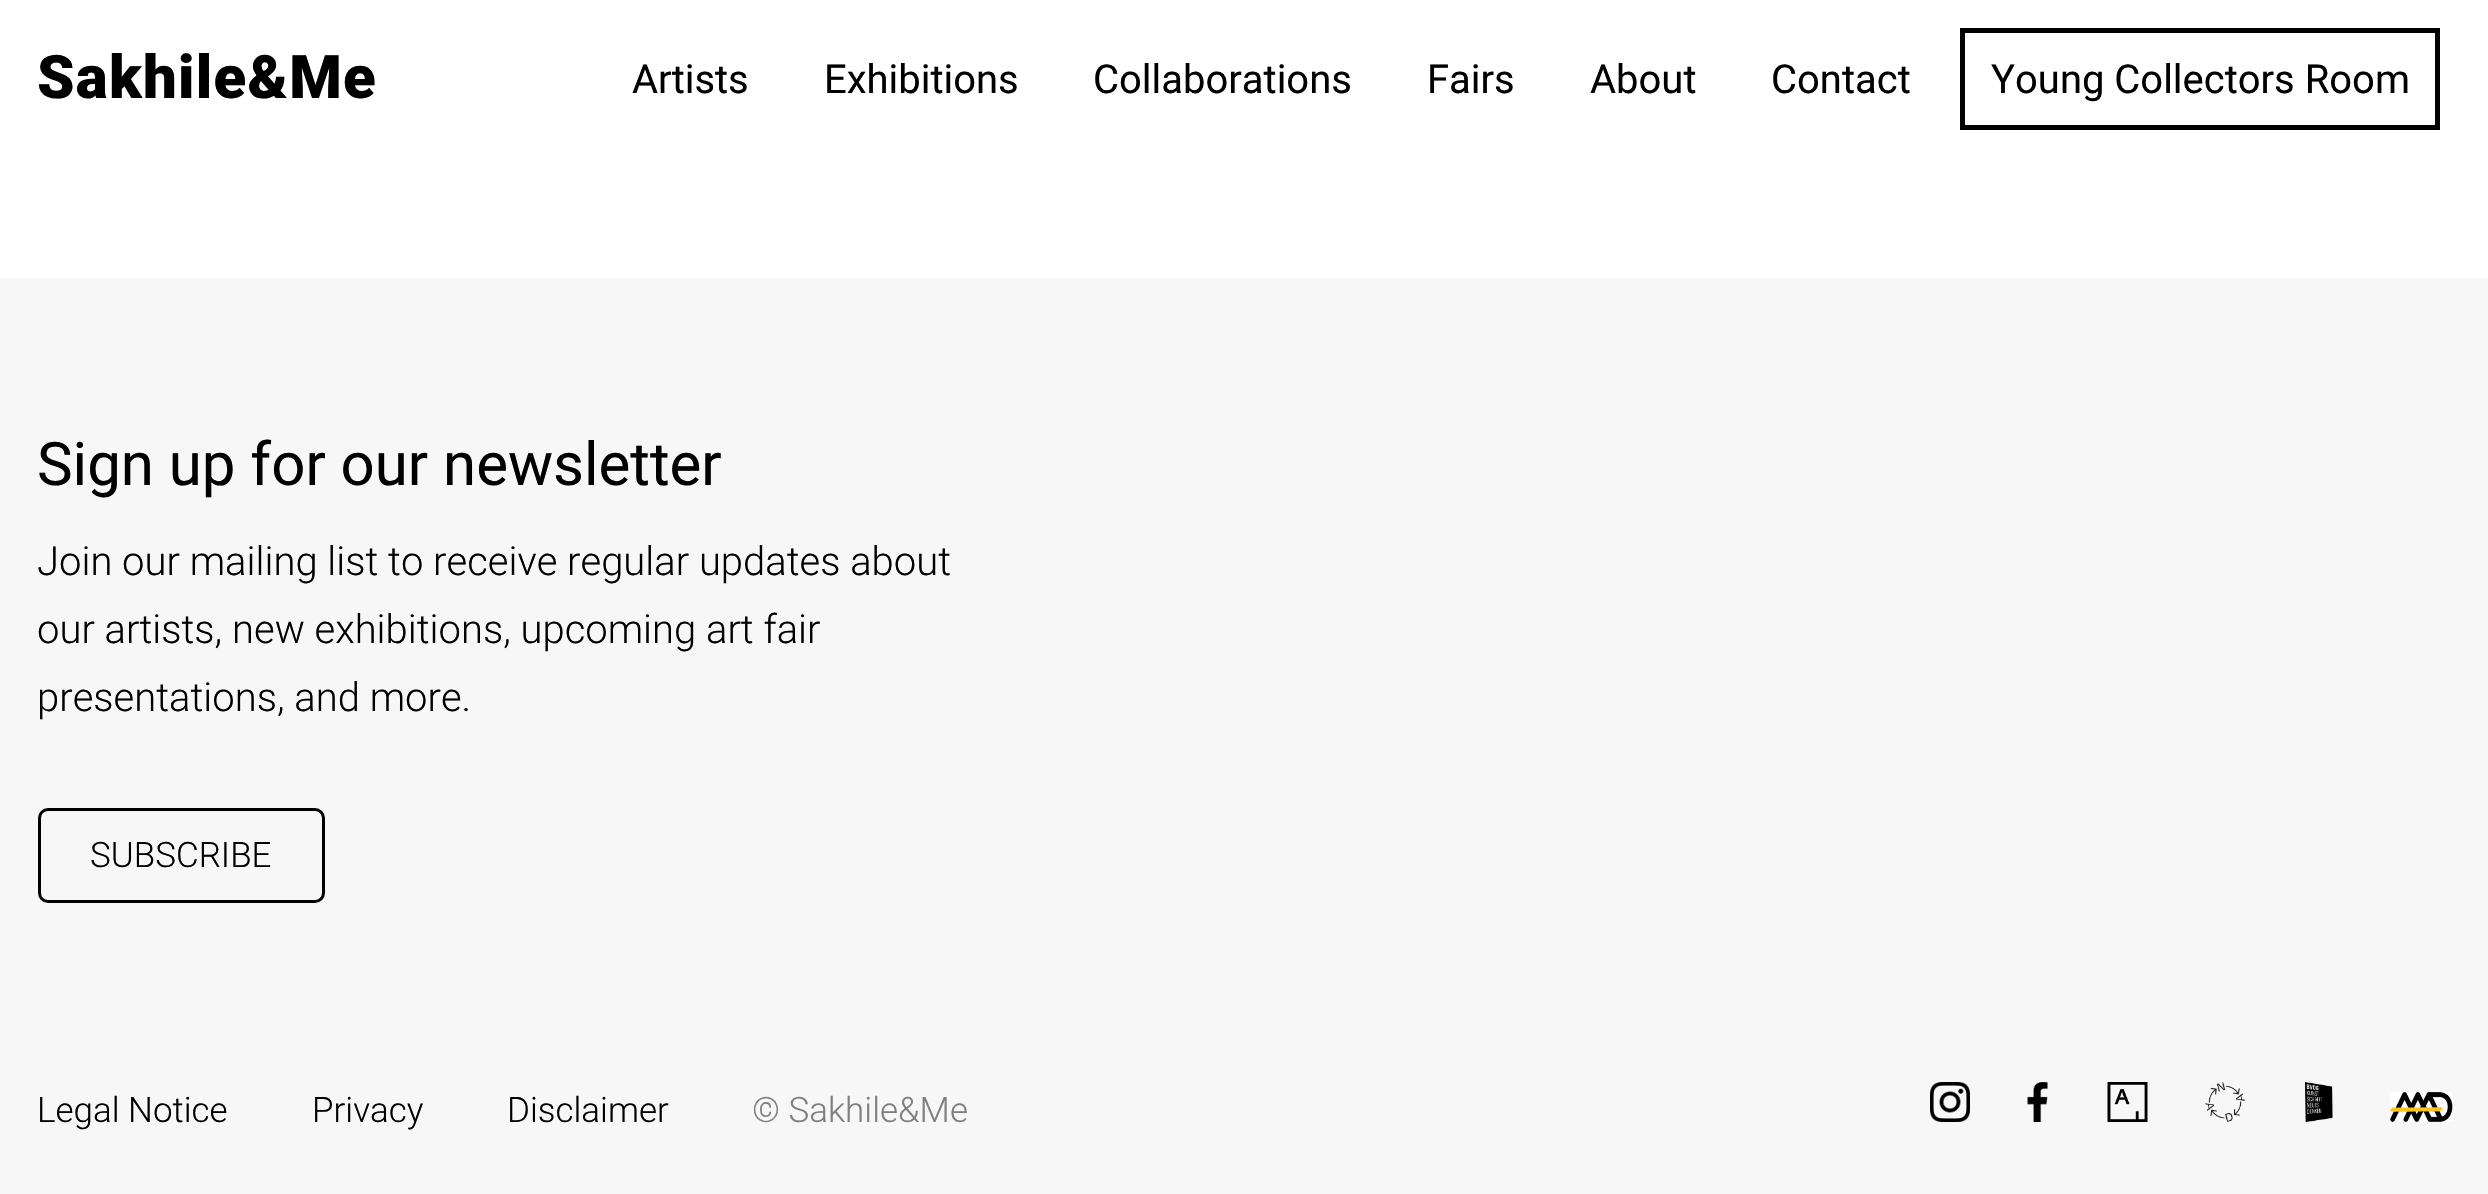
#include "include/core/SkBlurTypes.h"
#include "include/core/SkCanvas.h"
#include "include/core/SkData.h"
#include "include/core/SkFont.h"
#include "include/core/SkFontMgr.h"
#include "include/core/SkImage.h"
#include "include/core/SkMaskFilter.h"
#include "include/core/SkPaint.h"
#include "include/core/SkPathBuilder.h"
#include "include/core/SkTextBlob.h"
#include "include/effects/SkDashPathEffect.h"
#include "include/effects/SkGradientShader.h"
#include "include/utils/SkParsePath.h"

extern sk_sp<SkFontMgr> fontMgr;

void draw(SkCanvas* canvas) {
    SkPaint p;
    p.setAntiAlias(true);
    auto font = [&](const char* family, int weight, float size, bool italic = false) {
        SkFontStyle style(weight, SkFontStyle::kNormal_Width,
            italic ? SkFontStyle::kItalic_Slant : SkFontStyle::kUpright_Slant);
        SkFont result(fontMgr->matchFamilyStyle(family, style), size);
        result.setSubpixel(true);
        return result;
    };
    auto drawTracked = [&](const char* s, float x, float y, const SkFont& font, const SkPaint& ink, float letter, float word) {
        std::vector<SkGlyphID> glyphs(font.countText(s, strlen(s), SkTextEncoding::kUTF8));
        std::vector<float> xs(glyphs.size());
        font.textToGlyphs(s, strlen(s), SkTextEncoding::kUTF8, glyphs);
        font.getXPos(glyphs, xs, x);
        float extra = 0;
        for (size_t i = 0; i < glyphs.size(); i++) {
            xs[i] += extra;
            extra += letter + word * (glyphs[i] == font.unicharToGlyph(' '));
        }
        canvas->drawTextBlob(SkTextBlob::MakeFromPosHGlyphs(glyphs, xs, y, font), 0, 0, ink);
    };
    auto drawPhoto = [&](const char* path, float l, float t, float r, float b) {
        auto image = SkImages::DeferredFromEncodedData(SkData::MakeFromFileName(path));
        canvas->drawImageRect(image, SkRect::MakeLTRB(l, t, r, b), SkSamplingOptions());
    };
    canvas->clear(0xFFFFFFFF);
    auto font1 = font("Roboto", 900, 60);
    p.setColor(0xFF000000);
    drawTracked("Sakhile&Me", 37, 98, font1, p, 1.25f, 0);
    auto font2 = font("Roboto", 400, 40);
    {
        const struct { const char* s; float x, y; } items[] = {
            {"Artists", 632, 93},
            {"Exhibitions", 824, 93},
            {"Collaborations", 1093, 93},
            {"Fairs", 1427, 93},
            {"About", 1590, 93},
            {"Contact", 1771, 93},
        };
        for (auto [s, x, y] : items) {
            canvas->drawString(s, x, y, font2, p);
        }
    }
    p.setStyle(SkPaint::kStroke_Style);
    p.setStrokeWidth(5);
    canvas->drawRect(SkRect::MakeLTRB(1962.5f, 30.5f, 2437.5f, 127.5f), p);
    p.setStyle(SkPaint::kFill_Style);
    canvas->drawString("Young Collectors Room", 1991, 93, font2, p);
    p.setColor(0xFFF7F7F7);
    canvas->drawRect(SkRect::MakeLTRB(0, 278, 2488, 1194), p);
    auto font3 = font("Roboto", 400, 60);
    p.setColor(0xFF000000);
    canvas->drawString("Sign up for our newsletter", 37, 485, font3, p);
    auto font4 = font("Roboto", 300, 40);
    {
        const struct { const char* s; float x, y; } items[] = {
            {"Join our mailing list to receive regular updates about", 37, 575},
            {"our artists, new exhibitions, upcoming art fair", 37, 643},
            {"presentations, and more.", 37, 711},
        };
        for (auto [s, x, y] : items) {
            canvas->drawString(s, x, y, font4, p);
        }
    }
    p.setStyle(SkPaint::kStroke_Style);
    p.setStrokeWidth(3);
    canvas->drawRoundRect(SkRect::MakeLTRB(39.5f, 809.5f, 323.5f, 901.5f), 8.5f, 8.5f, p);
    auto font5 = font("Roboto", 300, 35);
    p.setStyle(SkPaint::kFill_Style);
    {
        const struct { const char* s; float x, y; } items[] = {
            {"SUBSCRIBE", 90, 867},
            {"Legal Notice", 37, 1122},
            {"Privacy", 312, 1122},
            {"Disclaimer", 507, 1122},
        };
        for (auto [s, x, y] : items) {
            canvas->drawString(s, x, y, font5, p);
        }
    }
    p.setColor(0xFF7F7F7F);
    canvas->drawString("© Sakhile&Me", 752, 1122, font5, p);
    drawPhoto("media/1.png", 1930, 1082, 1970, 1122);
    drawPhoto("media/2.png", 2027, 1082, 2048, 1122);
    drawPhoto("media/3.png", 2107, 1082, 2148, 1122);
    drawPhoto("media/4.png", 2205, 1082, 2245, 1122);
    drawPhoto("media/5.png", 2305, 1082, 2333, 1122);
    drawPhoto("media/6.png", 2390, 1092, 2453, 1122);
}
